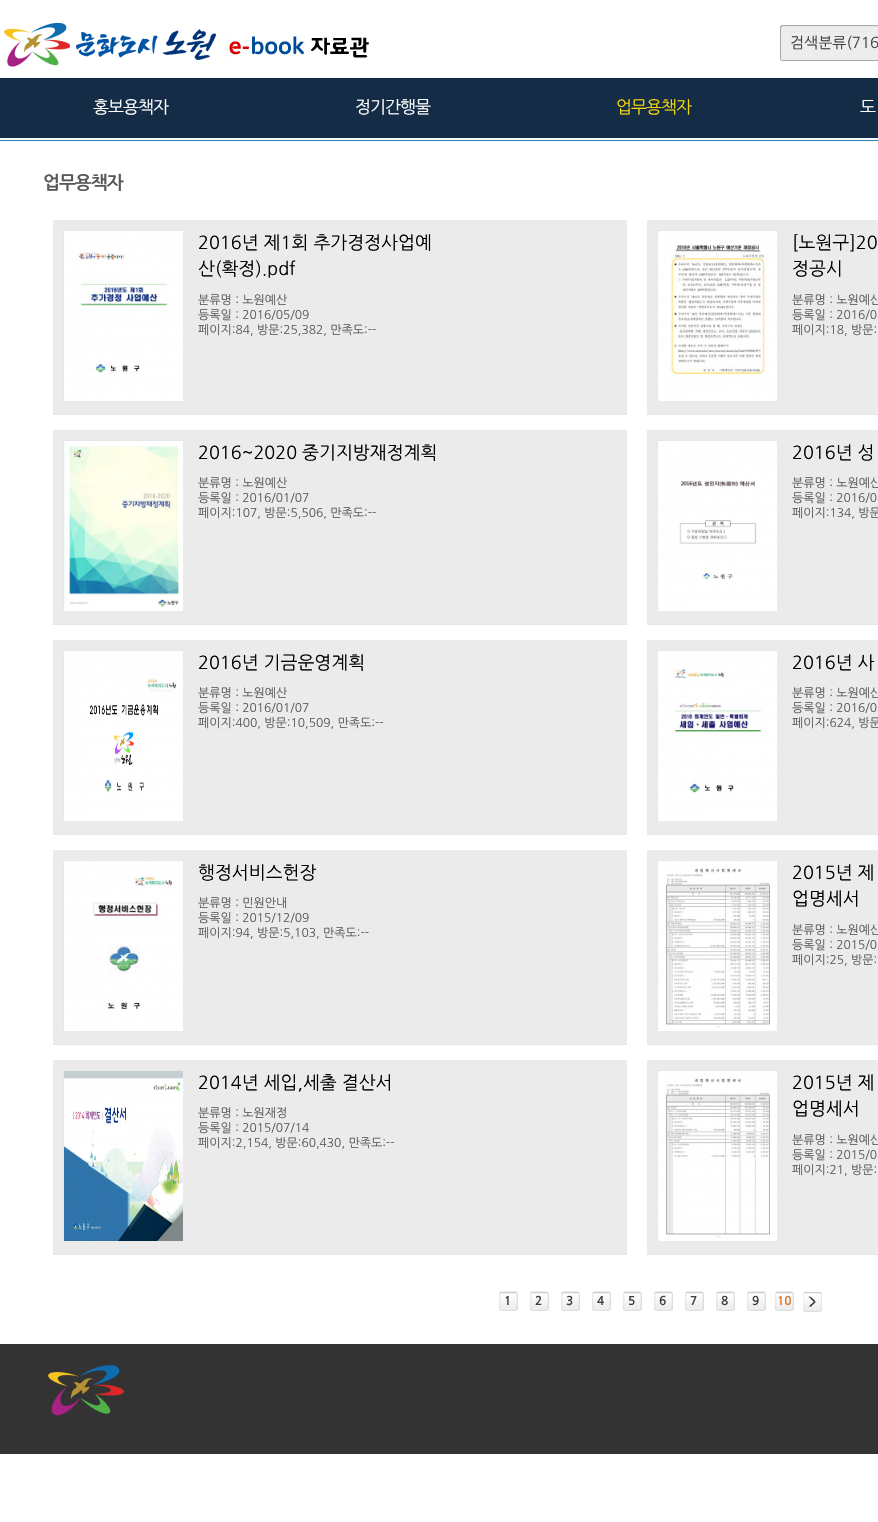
#include "include/core/SkBlurTypes.h"
#include "include/core/SkCanvas.h"
#include "include/core/SkData.h"
#include "include/core/SkFont.h"
#include "include/core/SkFontMgr.h"
#include "include/core/SkImage.h"
#include "include/core/SkMaskFilter.h"
#include "include/core/SkPaint.h"
#include "include/core/SkPathBuilder.h"
#include "include/core/SkTextBlob.h"
#include "include/effects/SkDashPathEffect.h"
#include "include/effects/SkGradientShader.h"
#include "include/utils/SkParsePath.h"

extern sk_sp<SkFontMgr> fontMgr;

void draw(SkCanvas* canvas) {
    SkPaint p;
    p.setAntiAlias(true);
    auto font = [&](const char* family, int weight, float size, bool italic = false) {
        SkFontStyle style(weight, SkFontStyle::kNormal_Width,
            italic ? SkFontStyle::kItalic_Slant : SkFontStyle::kUpright_Slant);
        SkFont result(fontMgr->matchFamilyStyle(family, style), size);
        result.setSubpixel(true);
        return result;
    };
    auto drawTracked = [&](const char* s, float x, float y, const SkFont& font, const SkPaint& ink, float letter, float word) {
        std::vector<SkGlyphID> glyphs(font.countText(s, strlen(s), SkTextEncoding::kUTF8));
        std::vector<float> xs(glyphs.size());
        font.textToGlyphs(s, strlen(s), SkTextEncoding::kUTF8, glyphs);
        font.getXPos(glyphs, xs, x);
        float extra = 0;
        for (size_t i = 0; i < glyphs.size(); i++) {
            xs[i] += extra;
            extra += letter + word * (glyphs[i] == font.unicharToGlyph(' '));
        }
        canvas->drawTextBlob(SkTextBlob::MakeFromPosHGlyphs(glyphs, xs, y, font), 0, 0, ink);
    };
    auto drawPhoto = [&](const char* path, float l, float t, float r, float b) {
        auto image = SkImages::DeferredFromEncodedData(SkData::MakeFromFileName(path));
        canvas->drawImageRect(image, SkRect::MakeLTRB(l, t, r, b), SkSamplingOptions());
    };
    canvas->clear(0xFFFFFFFF);
    drawPhoto("media/1.png", 4, 23, 369, 67);
    drawPhoto("media/2.png", 780, 25, 878, 61);
    auto font1 = font("NanumGothic", 400, 15);
    p.setColor(0xFF3F3F3F);
    canvas->drawString("검색분류(716", 790, 48, font1, p);
    p.setColor(0xFF142C46);
    canvas->drawRect(SkRect::MakeLTRB(0, 78, 878, 138), p);
    auto font2 = font("NanumGothic", 400, 17);
    p.setColor(0xFFFFFFFF);
    drawTracked("홍보용책자", 93, 113, font2, p, -1, 0);
    drawTracked("정기간행물", 355, 113, font2, p, -1, 0);
    p.setColor(0xFFF3D50E);
    drawTracked("업무용책자", 616, 113, font2, p, -1, 0);
    p.setColor(0xFFFFFFFF);
    drawTracked("도", 860, 113, font2, p, -1, 0);
    p.setColor(0xFF3180B9);
    canvas->drawRect(SkRect::MakeLTRB(0, 140, 878, 141), p);
    auto font3 = font("NanumGothic", 700, 18);
    p.setColor(0xFF595959);
    drawTracked("업무용책자", 43, 189, font3, p, -1, 0);
    p.setColor(0xFFECEBEB);
    canvas->drawRect(SkRect::MakeLTRB(53, 220, 627, 414), p);
    p.setColor(0xFFE6E6E6);
    canvas->drawRect(SkRect::MakeLTRB(53, 414, 627, 415), p);
    canvas->save();
    canvas->clipRect(SkRect::MakeLTRB(63, 230, 183, 401));
    p.setStyle(SkPaint::kStroke_Style);
    p.setStrokeWidth(1);
    p.setColor(0xFFE6E7E8);
    canvas->drawRect(SkRect::MakeLTRB(63.5f, 230.5f, 184.5f, 402.5f), p);
    canvas->restore();
    drawPhoto("media/3.png", 64, 231, 183, 401);
    auto font4 = font("NanumGothic", 400, 18);
    p.setStyle(SkPaint::kFill_Style);
    p.setColor(0xFF000000);
    canvas->drawString("2016년 제1회 추가경정사업예", 198, 249, font4, p);
    canvas->drawString("산(확정).pdf", 198, 275, font4, p);
    auto font5 = font("NanumGothic", 400, 12);
    p.setColor(0xFF595959);
    {
        const struct { const char* s; float x, y; } items[] = {
            {"분류명 : 노원예산", 198, 304},
            {"등록일 : 2016/05/09", 198, 319},
            {"페이지:84, 방문:25,382, 만족도:--", 198, 334},
        };
        for (auto [s, x, y] : items) {
            canvas->drawString(s, x, y, font5, p);
        }
    }
    p.setColor(0xFFECEBEB);
    canvas->drawRect(SkRect::MakeLTRB(647, 220, 878, 414), p);
    p.setColor(0xFFE6E6E6);
    canvas->drawRect(SkRect::MakeLTRB(647, 414, 878, 415), p);
    canvas->save();
    canvas->clipRect(SkRect::MakeLTRB(657, 230, 777, 401));
    p.setStyle(SkPaint::kStroke_Style);
    p.setColor(0xFFE6E7E8);
    canvas->drawRect(SkRect::MakeLTRB(657.5f, 230.5f, 778.5f, 402.5f), p);
    canvas->restore();
    drawPhoto("media/4.png", 658, 231, 777, 401);
    p.setStyle(SkPaint::kFill_Style);
    p.setColor(0xFF000000);
    canvas->drawString("[노원구]20", 792, 249, font4, p);
    canvas->drawString("정공시", 792, 275, font4, p);
    p.setColor(0xFF595959);
    {
        const struct { const char* s; float x, y; } items[] = {
            {"분류명 : 노원예산", 792, 304},
            {"등록일 : 2016/0", 792, 319},
            {"페이지:18, 방문:", 792, 334},
        };
        for (auto [s, x, y] : items) {
            canvas->drawString(s, x, y, font5, p);
        }
    }
    p.setColor(0xFFECEBEB);
    canvas->drawRect(SkRect::MakeLTRB(53, 430, 627, 624), p);
    p.setColor(0xFFE6E6E6);
    canvas->drawRect(SkRect::MakeLTRB(53, 624, 627, 625), p);
    canvas->save();
    canvas->clipRect(SkRect::MakeLTRB(63, 440, 183, 611));
    p.setStyle(SkPaint::kStroke_Style);
    p.setColor(0xFFE6E7E8);
    canvas->drawRect(SkRect::MakeLTRB(63.5f, 440.5f, 184.5f, 612.5f), p);
    canvas->restore();
    drawPhoto("media/5.png", 64, 441, 183, 611);
    p.setStyle(SkPaint::kFill_Style);
    p.setColor(0xFF000000);
    canvas->drawString("2016~2020 중기지방재정계획", 198, 459, font4, p);
    p.setColor(0xFF595959);
    {
        const struct { const char* s; float x, y; } items[] = {
            {"분류명 : 노원예산", 198, 487},
            {"등록일 : 2016/01/07", 198, 502},
            {"페이지:107, 방문:5,506, 만족도:--", 198, 517},
        };
        for (auto [s, x, y] : items) {
            canvas->drawString(s, x, y, font5, p);
        }
    }
    p.setColor(0xFFECEBEB);
    canvas->drawRect(SkRect::MakeLTRB(647, 430, 878, 624), p);
    p.setColor(0xFFE6E6E6);
    canvas->drawRect(SkRect::MakeLTRB(647, 624, 878, 625), p);
    canvas->save();
    canvas->clipRect(SkRect::MakeLTRB(657, 440, 777, 611));
    p.setStyle(SkPaint::kStroke_Style);
    p.setColor(0xFFE6E7E8);
    canvas->drawRect(SkRect::MakeLTRB(657.5f, 440.5f, 778.5f, 612.5f), p);
    canvas->restore();
    drawPhoto("media/6.png", 658, 441, 777, 611);
    p.setStyle(SkPaint::kFill_Style);
    p.setColor(0xFF000000);
    canvas->drawString("2016년 성", 792, 459, font4, p);
    p.setColor(0xFF595959);
    {
        const struct { const char* s; float x, y; } items[] = {
            {"분류명 : 노원예산", 792, 487},
            {"등록일 : 2016/0", 792, 502},
            {"페이지:134, 방문", 792, 517},
        };
        for (auto [s, x, y] : items) {
            canvas->drawString(s, x, y, font5, p);
        }
    }
    p.setColor(0xFFECEBEB);
    canvas->drawRect(SkRect::MakeLTRB(53, 640, 627, 834), p);
    p.setColor(0xFFE6E6E6);
    canvas->drawRect(SkRect::MakeLTRB(53, 834, 627, 835), p);
    canvas->save();
    canvas->clipRect(SkRect::MakeLTRB(63, 650, 183, 821));
    p.setStyle(SkPaint::kStroke_Style);
    p.setColor(0xFFE6E7E8);
    canvas->drawRect(SkRect::MakeLTRB(63.5f, 650.5f, 184.5f, 822.5f), p);
    canvas->restore();
    drawPhoto("media/7.png", 64, 651, 124, 821);
    drawPhoto("media/8.png", 124, 651, 183, 821);
    p.setStyle(SkPaint::kFill_Style);
    p.setColor(0xFF000000);
    canvas->drawString("2016년 기금운영계획", 198, 669, font4, p);
    p.setColor(0xFF595959);
    {
        const struct { const char* s; float x, y; } items[] = {
            {"분류명 : 노원예산", 198, 697},
            {"등록일 : 2016/01/07", 198, 712},
            {"페이지:400, 방문:10,509, 만족도:--", 198, 727},
        };
        for (auto [s, x, y] : items) {
            canvas->drawString(s, x, y, font5, p);
        }
    }
    p.setColor(0xFFECEBEB);
    canvas->drawRect(SkRect::MakeLTRB(647, 640, 878, 834), p);
    p.setColor(0xFFE6E6E6);
    canvas->drawRect(SkRect::MakeLTRB(647, 834, 878, 835), p);
    canvas->save();
    canvas->clipRect(SkRect::MakeLTRB(657, 650, 777, 821));
    p.setStyle(SkPaint::kStroke_Style);
    p.setColor(0xFFE6E7E8);
    canvas->drawRect(SkRect::MakeLTRB(657.5f, 650.5f, 778.5f, 822.5f), p);
    canvas->restore();
    drawPhoto("media/9.png", 658, 651, 777, 821);
    p.setStyle(SkPaint::kFill_Style);
    p.setColor(0xFF000000);
    canvas->drawString("2016년 사", 792, 669, font4, p);
    p.setColor(0xFF595959);
    {
        const struct { const char* s; float x, y; } items[] = {
            {"분류명 : 노원예산", 792, 697},
            {"등록일 : 2016/0", 792, 712},
            {"페이지:624, 방문", 792, 727},
        };
        for (auto [s, x, y] : items) {
            canvas->drawString(s, x, y, font5, p);
        }
    }
    p.setColor(0xFFECEBEB);
    canvas->drawRect(SkRect::MakeLTRB(53, 850, 627, 1044), p);
    p.setColor(0xFFE6E6E6);
    canvas->drawRect(SkRect::MakeLTRB(53, 1044, 627, 1045), p);
    canvas->save();
    canvas->clipRect(SkRect::MakeLTRB(63, 860, 183, 1031));
    p.setStyle(SkPaint::kStroke_Style);
    p.setColor(0xFFE6E7E8);
    canvas->drawRect(SkRect::MakeLTRB(63.5f, 860.5f, 184.5f, 1032.5f), p);
    canvas->restore();
    drawPhoto("media/10.png", 64, 861, 183, 1031);
    p.setStyle(SkPaint::kFill_Style);
    p.setColor(0xFF000000);
    canvas->drawString("행정서비스헌장", 198, 879, font4, p);
    p.setColor(0xFF595959);
    {
        const struct { const char* s; float x, y; } items[] = {
            {"분류명 : 민원안내", 198, 907},
            {"등록일 : 2015/12/09", 198, 922},
            {"페이지:94, 방문:5,103, 만족도:--", 198, 937},
        };
        for (auto [s, x, y] : items) {
            canvas->drawString(s, x, y, font5, p);
        }
    }
    p.setColor(0xFFECEBEB);
    canvas->drawRect(SkRect::MakeLTRB(647, 850, 878, 1044), p);
    p.setColor(0xFFE6E6E6);
    canvas->drawRect(SkRect::MakeLTRB(647, 1044, 878, 1045), p);
    canvas->save();
    canvas->clipRect(SkRect::MakeLTRB(657, 860, 777, 1031));
    p.setStyle(SkPaint::kStroke_Style);
    p.setColor(0xFFE6E7E8);
    canvas->drawRect(SkRect::MakeLTRB(657.5f, 860.5f, 778.5f, 1032.5f), p);
    canvas->restore();
    drawPhoto("media/11.png", 658, 861, 777, 1031);
    p.setStyle(SkPaint::kFill_Style);
    p.setColor(0xFF000000);
    canvas->drawString("2015년 제", 792, 879, font4, p);
    canvas->drawString("업명세서", 792, 905, font4, p);
    p.setColor(0xFF595959);
    {
        const struct { const char* s; float x, y; } items[] = {
            {"분류명 : 노원예산", 792, 934},
            {"등록일 : 2015/0", 792, 949},
            {"페이지:25, 방문:", 792, 964},
        };
        for (auto [s, x, y] : items) {
            canvas->drawString(s, x, y, font5, p);
        }
    }
    p.setColor(0xFFECEBEB);
    canvas->drawRect(SkRect::MakeLTRB(53, 1060, 627, 1254), p);
    p.setColor(0xFFE6E6E6);
    canvas->drawRect(SkRect::MakeLTRB(53, 1254, 627, 1255), p);
    canvas->save();
    canvas->clipRect(SkRect::MakeLTRB(63, 1070, 183, 1241));
    p.setStyle(SkPaint::kStroke_Style);
    p.setColor(0xFFE6E7E8);
    canvas->drawRect(SkRect::MakeLTRB(63.5f, 1070.5f, 184.5f, 1242.5f), p);
    canvas->restore();
    drawPhoto("media/12.png", 64, 1071, 124, 1241);
    drawPhoto("media/13.png", 124, 1071, 183, 1241);
    p.setStyle(SkPaint::kFill_Style);
    p.setColor(0xFF000000);
    canvas->drawString("2014년 세입,세출 결산서", 198, 1089, font4, p);
    p.setColor(0xFF595959);
    {
        const struct { const char* s; float x, y; } items[] = {
            {"분류명 : 노원재정", 198, 1117},
            {"등록일 : 2015/07/14", 198, 1132},
            {"페이지:2,154, 방문:60,430, 만족도:--", 198, 1147},
        };
        for (auto [s, x, y] : items) {
            canvas->drawString(s, x, y, font5, p);
        }
    }
    p.setColor(0xFFECEBEB);
    canvas->drawRect(SkRect::MakeLTRB(647, 1060, 878, 1254), p);
    p.setColor(0xFFE6E6E6);
    canvas->drawRect(SkRect::MakeLTRB(647, 1254, 878, 1255), p);
    canvas->save();
    canvas->clipRect(SkRect::MakeLTRB(657, 1070, 777, 1241));
    p.setStyle(SkPaint::kStroke_Style);
    p.setColor(0xFFE6E7E8);
    canvas->drawRect(SkRect::MakeLTRB(657.5f, 1070.5f, 778.5f, 1242.5f), p);
    canvas->restore();
    drawPhoto("media/14.png", 658, 1071, 777, 1241);
    p.setStyle(SkPaint::kFill_Style);
    p.setColor(0xFF000000);
    canvas->drawString("2015년 제", 792, 1089, font4, p);
    canvas->drawString("업명세서", 792, 1115, font4, p);
    p.setColor(0xFF595959);
    {
        const struct { const char* s; float x, y; } items[] = {
            {"분류명 : 노원예산", 792, 1144},
            {"등록일 : 2015/0", 792, 1159},
            {"페이지:21, 방문:", 792, 1174},
        };
        for (auto [s, x, y] : items) {
            canvas->drawString(s, x, y, font5, p);
        }
    }
    drawPhoto("media/15.png", 499, 1291, 518, 1311);
    auto font6 = font("NanumGothic", 700, 12);
    p.setColor(0xFF3F3F3F);
    canvas->drawString("1", 504, 1305, font6, p);
    drawPhoto("media/15.png", 530, 1291, 549, 1311);
    canvas->drawString("2", 535, 1305, font6, p);
    drawPhoto("media/15.png", 561, 1291, 580, 1311);
    canvas->drawString("3", 566, 1305, font6, p);
    drawPhoto("media/15.png", 592, 1291, 611, 1311);
    canvas->drawString("4", 597, 1305, font6, p);
    drawPhoto("media/15.png", 623, 1291, 642, 1311);
    canvas->drawString("5", 628, 1305, font6, p);
    drawPhoto("media/15.png", 654, 1291, 673, 1311);
    canvas->drawString("6", 659, 1305, font6, p);
    drawPhoto("media/15.png", 685, 1291, 704, 1311);
    canvas->drawString("7", 690, 1305, font6, p);
    drawPhoto("media/15.png", 716, 1291, 735, 1311);
    canvas->drawString("8", 721, 1305, font6, p);
    drawPhoto("media/15.png", 747, 1291, 766, 1311);
    canvas->drawString("9", 752, 1305, font6, p);
    drawPhoto("media/15.png", 775, 1291, 794, 1311);
    p.setColor(0xFFDC7429);
    canvas->drawString("10", 777, 1305, font6, p);
    drawPhoto("media/16.png", 803, 1292, 822, 1312);
    p.setColor(0xFF333333);
    canvas->drawRect(SkRect::MakeLTRB(0, 1344, 878, 1454), p);
    drawPhoto("media/17.png", 46, 1362, 125, 1416);
}
